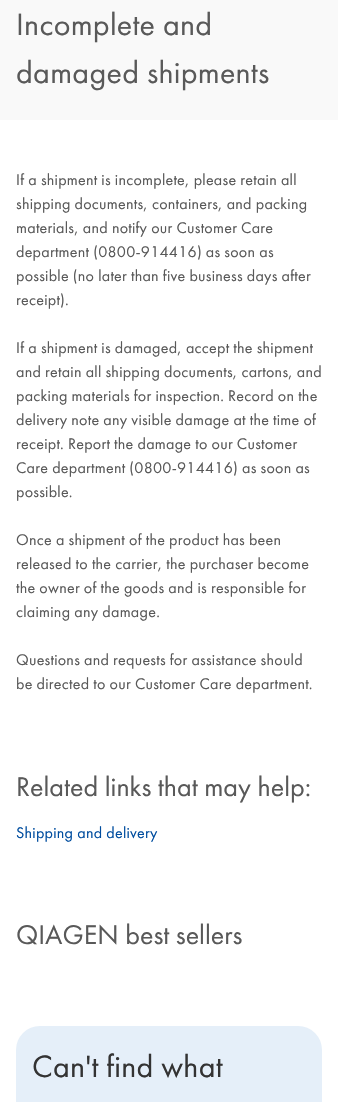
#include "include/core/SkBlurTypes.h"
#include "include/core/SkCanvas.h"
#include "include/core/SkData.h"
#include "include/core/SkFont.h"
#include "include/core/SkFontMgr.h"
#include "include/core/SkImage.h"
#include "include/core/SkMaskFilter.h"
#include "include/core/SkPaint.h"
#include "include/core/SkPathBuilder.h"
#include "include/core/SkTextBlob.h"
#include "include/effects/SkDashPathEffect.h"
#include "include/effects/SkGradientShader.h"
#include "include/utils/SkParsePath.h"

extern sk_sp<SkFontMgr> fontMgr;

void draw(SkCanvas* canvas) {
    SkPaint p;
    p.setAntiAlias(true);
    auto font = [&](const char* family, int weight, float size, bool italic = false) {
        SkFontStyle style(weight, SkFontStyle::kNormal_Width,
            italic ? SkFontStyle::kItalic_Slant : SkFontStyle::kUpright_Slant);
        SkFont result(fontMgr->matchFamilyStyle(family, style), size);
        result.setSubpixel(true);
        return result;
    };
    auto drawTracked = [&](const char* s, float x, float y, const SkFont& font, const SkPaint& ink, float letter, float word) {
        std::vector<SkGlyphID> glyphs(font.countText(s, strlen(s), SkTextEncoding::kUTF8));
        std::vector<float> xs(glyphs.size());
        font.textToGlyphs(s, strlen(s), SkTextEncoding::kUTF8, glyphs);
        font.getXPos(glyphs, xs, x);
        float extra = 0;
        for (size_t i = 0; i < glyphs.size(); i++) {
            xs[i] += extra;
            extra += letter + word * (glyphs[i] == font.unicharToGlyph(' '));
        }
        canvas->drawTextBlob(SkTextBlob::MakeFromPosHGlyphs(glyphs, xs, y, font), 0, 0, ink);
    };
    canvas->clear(0xFFFFFFFF);
    p.setColor(0xFFF9F9F9);
    canvas->drawRect(SkRect::MakeLTRB(0, 0, 338, 120), p);
    auto font1 = font("Futura", 400, 32);
    p.setColor(0xFF595959);
    drawTracked("Incomplete and", 16, 35, font1, p, 0.25f, 0);
    drawTracked("damaged shipments", 16, 83, font1, p, 0.25f, 0);
    auto font2 = font("Futura", 400, 16);
    {
        const struct { const char* s; float x, y; } items[] = {
            {"If a shipment is incomplete, please retain all", 16, 185},
            {"shipping documents, containers, and packing", 16, 209},
            {"materials, and notify our Customer Care", 16, 233},
            {"department (0800-914416) as soon as", 16, 257},
            {"possible (no later than five business days after", 16, 281},
            {"receipt).", 16, 305},
            {"If a shipment is damaged, accept the shipment", 16, 353},
            {"and retain all shipping documents, cartons, and", 16, 377},
            {"packing materials for inspection. Record on the", 16, 401},
            {"delivery note any visible damage at the time of", 16, 425},
            {"receipt. Report the damage to our Customer", 16, 449},
            {"Care department (0800-914416) as soon as", 16, 473},
            {"possible.", 16, 497},
            {"Once a shipment of the product has been", 16, 545},
            {"released to the carrier, the purchaser become", 16, 569},
            {"the owner of the goods and is responsible for", 16, 593},
            {"claiming any damage.", 16, 617},
            {"Questions and requests for assistance should", 16, 665},
            {"be directed to our Customer Care department.", 16, 689},
        };
        for (auto [s, x, y] : items) {
            drawTracked(s, x, y, font2, p, 0.25f, 0);
        }
    }
    auto font3 = font("Futura", 400, 28);
    canvas->drawString("Related links that may help:", 16, 796, font3, p);
    p.setColor(0xFF004D9F);
    drawTracked("Shipping and delivery", 16, 838, font2, p, 0.25f, 0);
    p.setColor(0xFF595959);
    canvas->drawString("QIAGEN best sellers", 16, 944, font3, p);
    p.setColor(0xFFE5EFF9);
    canvas->drawRoundRect(SkRect::MakeLTRB(16, 1026, 322, 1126), 24, 24, p);
    p.setColor(0xFF333333);
    drawTracked("Can't find what", 32, 1077, font1, p, 0.25f, 0);
}
